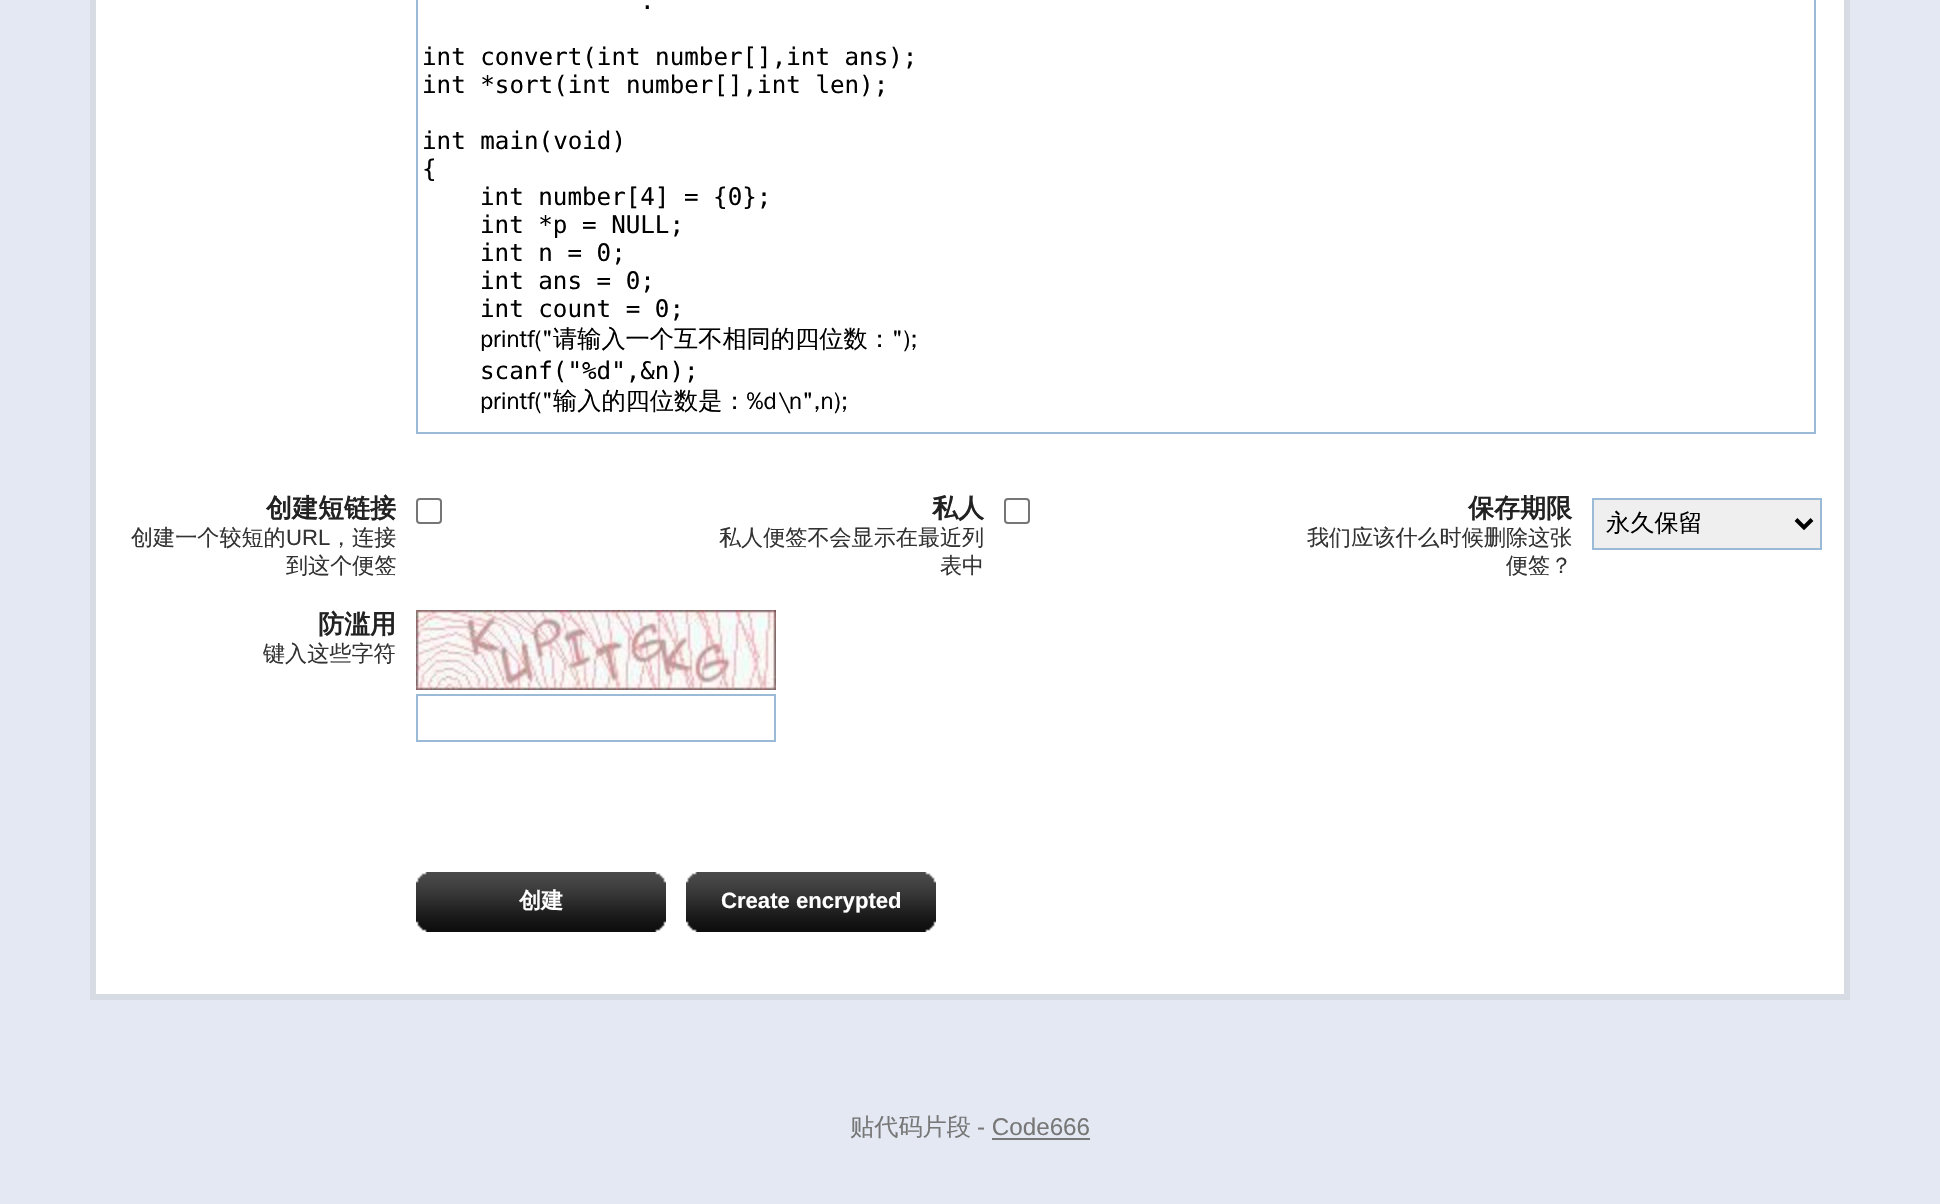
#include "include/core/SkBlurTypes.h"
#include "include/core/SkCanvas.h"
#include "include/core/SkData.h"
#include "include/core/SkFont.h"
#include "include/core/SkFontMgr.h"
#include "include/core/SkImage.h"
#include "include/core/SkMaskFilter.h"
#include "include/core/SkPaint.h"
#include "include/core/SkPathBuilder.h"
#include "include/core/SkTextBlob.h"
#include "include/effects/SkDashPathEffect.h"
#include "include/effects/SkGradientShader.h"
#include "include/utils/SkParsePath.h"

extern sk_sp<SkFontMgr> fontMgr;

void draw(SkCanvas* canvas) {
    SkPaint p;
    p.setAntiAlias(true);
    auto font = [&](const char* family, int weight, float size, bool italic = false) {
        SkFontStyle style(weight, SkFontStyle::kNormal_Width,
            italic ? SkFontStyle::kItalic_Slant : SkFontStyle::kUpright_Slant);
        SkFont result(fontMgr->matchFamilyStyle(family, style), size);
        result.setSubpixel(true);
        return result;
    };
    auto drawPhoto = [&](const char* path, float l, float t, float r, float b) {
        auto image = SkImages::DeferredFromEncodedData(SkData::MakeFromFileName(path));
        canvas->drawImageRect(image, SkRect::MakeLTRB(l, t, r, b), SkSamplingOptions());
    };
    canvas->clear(0xFFE3E8F2);
    p.setColor(0xFFFFFFFF);
    canvas->drawRect(SkRect::MakeLTRB(93, -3, 1847, 997), p);
    p.setStyle(SkPaint::kStroke_Style);
    p.setStrokeWidth(6);
    p.setColor(0xFFD6DBE4);
    canvas->drawRect(SkRect::MakeLTRB(93, -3, 1847, 997), p);
    p.setStrokeWidth(2);
    p.setColor(0xFF9ABAD7);
    canvas->drawRect(SkRect::MakeLTRB(417, -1, 1815, 433), p);
    auto font1 = font("DejaVu Sans Mono", 400, 24.2f);
    p.setStyle(SkPaint::kFill_Style);
    p.setColor(0xFF000000);
    {
        const struct { const char* s; float x, y; } items[] = {
            {".", 640, 9},
            {"int convert(int number[],int ans);", 422, 65},
            {"int *sort(int number[],int len);", 422, 93},
            {"int main(void)", 422, 149},
            {"{", 422, 177},
            {"int number[4] = {0};", 480, 205},
            {"int *p = NULL;", 480, 233},
            {"int n = 0;", 480, 261},
            {"int ans = 0;", 480, 289},
            {"int count = 0;", 480, 317},
        };
        for (auto [s, x, y] : items) {
            canvas->drawString(s, x, y, font1, p);
        }
    }
    auto font2 = font("WenQuanYi Zen Hei", 500, 24.2f);
    canvas->drawString("printf(\"请输入一个互不相同的四位数：\");", 480, 347, font2, p);
    canvas->drawString("scanf(\"%d\",&n);", 480, 379, font1, p);
    canvas->drawString("printf(\"输入的四位数是：%d\\n\",n);", 480, 409, font2, p);
    auto font3 = font("WenQuanYi Zen Hei", 700, 26);
    p.setColor(0xFF222222);
    canvas->drawString("创建短链接", 266, 517, font3, p);
    auto font4 = font("WenQuanYi Zen Hei", 500, 22.1f);
    p.setColor(0xFF333333);
    canvas->drawString("创建一个较短的", 131, 545, font4, p);
    auto font5 = font("Liberation Sans", 400, 22.1f);
    canvas->drawString("URL", 286, 545, font5, p);
    canvas->drawString("，连接", 330, 545, font4, p);
    canvas->drawString("到这个便签", 286, 573, font4, p);
    p.setStyle(SkPaint::kStroke_Style);
    p.setColor(0xFF767676);
    canvas->drawRoundRect(SkRect::MakeLTRB(417, 499, 441, 523), 3, 3, p);
    p.setStyle(SkPaint::kFill_Style);
    p.setColor(0xFF222222);
    canvas->drawString("私人", 932, 517, font3, p);
    p.setColor(0xFF333333);
    canvas->drawString("私人便签不会显示在最近列", 719, 545, font4, p);
    canvas->drawString("表中", 940, 573, font4, p);
    p.setStyle(SkPaint::kStroke_Style);
    p.setColor(0xFF767676);
    canvas->drawRoundRect(SkRect::MakeLTRB(1005, 499, 1029, 523), 3, 3, p);
    p.setStyle(SkPaint::kFill_Style);
    p.setColor(0xFF222222);
    canvas->drawString("保存期限", 1468, 517, font3, p);
    p.setColor(0xFF333333);
    canvas->drawString("我们应该什么时候删除这张", 1307, 545, font4, p);
    canvas->drawString("便签？", 1506, 573, font4, p);
    p.setColor(0xFFEFEFEF);
    canvas->drawRect(SkRect::MakeLTRB(1593, 499, 1821, 549), p);
    p.setStyle(SkPaint::kStroke_Style);
    p.setColor(0xFF9ABAD7);
    canvas->drawRect(SkRect::MakeLTRB(1593, 499, 1821, 549), p);
    p.setStrokeWidth(4);
    p.setColor(0xFF000000);
    canvas->drawPath(SkPathBuilder().moveTo(1796, 519.5f).lineTo(1804, 527.5f).lineTo(1812, 519.5f).detach(), p);
    p.setStyle(SkPaint::kFill_Style);
    canvas->drawString("永久保留", 1606, 531, font2, p);
    p.setColor(0xFF222222);
    canvas->drawString("防滥用", 318, 633, font3, p);
    p.setColor(0xFF333333);
    canvas->drawString("键入这些字符", 263, 661, font4, p);
    drawPhoto("media/1.png", 416, 610, 776, 690);
    p.setStyle(SkPaint::kStroke_Style);
    p.setStrokeWidth(2);
    p.setColor(0xFF9ABAD7);
    canvas->drawRect(SkRect::MakeLTRB(417, 695, 775, 741), p);
    drawPhoto("media/2.png", 416, 872, 666, 932);
    auto font6 = font("WenQuanYi Zen Hei", 700, 22.1f);
    p.setStyle(SkPaint::kFill_Style);
    p.setColor(0xFFFFFFFF);
    canvas->drawString("创建", 519, 908, font6, p);
    drawPhoto("media/2.png", 686, 872, 936, 932);
    auto font7 = font("Liberation Sans", 700, 22.1f);
    canvas->drawString("Create encrypted", 721, 908, font7, p);
    p.setColor(0xFF777777);
    canvas->drawString("贴代码片段", 850, 1135, font2, p);
    auto font8 = font("Liberation Sans", 400, 24.2f);
    canvas->drawString("- Code666", 977, 1135, font8, p);
    canvas->drawRect(SkRect::MakeLTRB(992, 1138, 1090, 1140), p);
}
